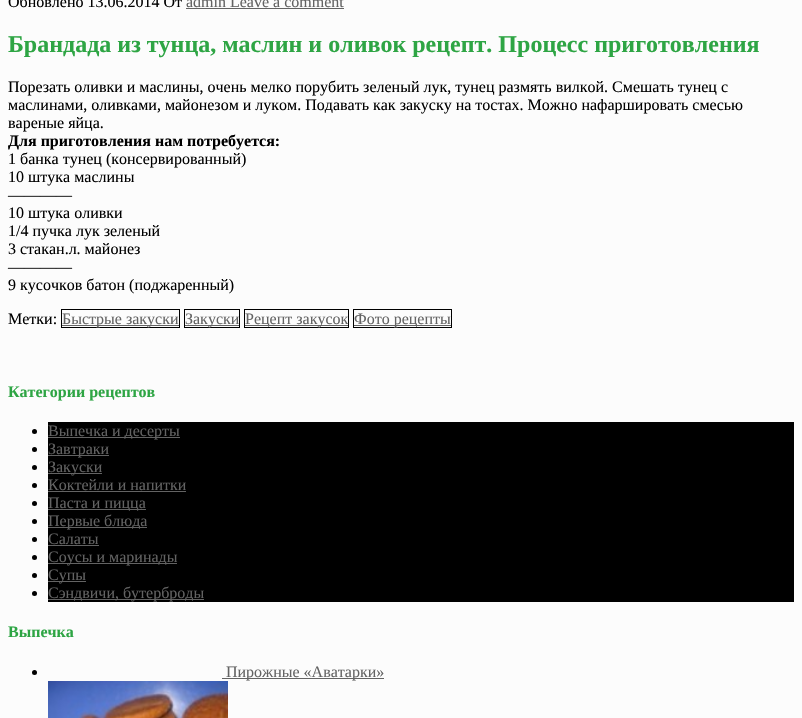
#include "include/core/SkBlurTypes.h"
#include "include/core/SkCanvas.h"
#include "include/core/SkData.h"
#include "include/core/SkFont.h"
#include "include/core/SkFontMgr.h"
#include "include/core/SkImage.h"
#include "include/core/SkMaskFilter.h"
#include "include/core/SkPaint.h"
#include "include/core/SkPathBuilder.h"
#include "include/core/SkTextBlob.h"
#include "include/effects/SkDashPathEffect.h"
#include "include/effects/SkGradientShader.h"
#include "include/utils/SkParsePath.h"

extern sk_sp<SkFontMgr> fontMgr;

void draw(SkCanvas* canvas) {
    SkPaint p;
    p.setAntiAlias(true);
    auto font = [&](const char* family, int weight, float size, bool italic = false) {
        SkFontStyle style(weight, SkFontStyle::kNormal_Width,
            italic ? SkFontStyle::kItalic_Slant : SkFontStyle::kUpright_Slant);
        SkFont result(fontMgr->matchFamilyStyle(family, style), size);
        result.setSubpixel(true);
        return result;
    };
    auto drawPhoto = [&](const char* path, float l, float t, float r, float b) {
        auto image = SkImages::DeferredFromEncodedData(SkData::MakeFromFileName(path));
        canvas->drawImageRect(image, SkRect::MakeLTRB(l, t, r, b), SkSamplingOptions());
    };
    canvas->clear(0xFFFCFCFC);
    auto font1 = font("Liberation Serif", 400, 16);
    p.setColor(0xFF000000);
    canvas->drawString("Обновлено 13.06.2014 От", 8, 7, font1, p);
    p.setColor(0xFF636363);
    canvas->drawString("admin Leave a comment", 186, 7, font1, p);
    canvas->drawRect(SkRect::MakeLTRB(186, 8, 344, 9), p);
    auto font2 = font("Liberation Serif", 700, 24);
    p.setColor(0xFF2EA544);
    canvas->drawString("Брандада из тунца, маслин и оливок рецепт. Процесс приготовления", 8, 52, font2, p);
    p.setColor(0xFF000000);
    {
        const struct { const char* s; float x, y; } items[] = {
            {"Порезать оливки и маслины, очень мелко порубить зеленый лук, тунец размять вилкой. Смешать тунец с", 8, 92},
            {"маслинами, оливками, майонезом и луком. Подавать как закуску на тостах. Можно нафаршировать смесью", 8, 110},
            {"вареные яйца.", 8, 128},
        };
        for (auto [s, x, y] : items) {
            canvas->drawString(s, x, y, font1, p);
        }
    }
    auto font3 = font("Liberation Serif", 700, 16);
    canvas->drawString("Для приготовления нам потребуется:", 8, 146, font3, p);
    {
        const struct { const char* s; float x, y; } items[] = {
            {"1 банка тунец (консервированный)", 8, 164},
            {"10 штука маслины", 8, 182},
            {"————", 8, 200},
            {"10 штука оливки", 8, 218},
            {"1/4 пучка лук зеленый", 8, 236},
            {"3 стакан.л. майонез", 8, 254},
            {"————", 8, 272},
            {"9 кусочков батон (поджаренный)", 8, 290},
            {"Метки:", 8, 324},
        };
        for (auto [s, x, y] : items) {
            canvas->drawString(s, x, y, font1, p);
        }
    }
    p.setStyle(SkPaint::kStroke_Style);
    p.setStrokeWidth(1);
    canvas->drawRect(SkRect::MakeLTRB(61.5f, 309.5f, 179.5f, 327.5f), p);
    p.setStyle(SkPaint::kFill_Style);
    p.setColor(0xFF636363);
    canvas->drawRect(SkRect::MakeLTRB(62, 325, 179, 326), p);
    canvas->drawString("Быстрые закуски", 62, 324, font1, p);
    p.setStyle(SkPaint::kStroke_Style);
    p.setColor(0xFF000000);
    canvas->drawRect(SkRect::MakeLTRB(184.5f, 309.5f, 239.5f, 327.5f), p);
    p.setStyle(SkPaint::kFill_Style);
    p.setColor(0xFF636363);
    canvas->drawRect(SkRect::MakeLTRB(185, 325, 239, 326), p);
    canvas->drawString("Закуски", 185, 324, font1, p);
    p.setStyle(SkPaint::kStroke_Style);
    p.setColor(0xFF000000);
    canvas->drawRect(SkRect::MakeLTRB(244.5f, 309.5f, 348.5f, 327.5f), p);
    p.setStyle(SkPaint::kFill_Style);
    p.setColor(0xFF636363);
    canvas->drawRect(SkRect::MakeLTRB(245, 325, 348, 326), p);
    canvas->drawString("Рецепт закусок", 245, 324, font1, p);
    p.setStyle(SkPaint::kStroke_Style);
    p.setColor(0xFF000000);
    canvas->drawRect(SkRect::MakeLTRB(353.5f, 309.5f, 451.5f, 327.5f), p);
    p.setStyle(SkPaint::kFill_Style);
    p.setColor(0xFF636363);
    canvas->drawRect(SkRect::MakeLTRB(354, 325, 451, 326), p);
    canvas->drawString("Фото рецепты", 354, 324, font1, p);
    p.setColor(0xFF2EA544);
    canvas->drawString("Категории рецептов", 8, 397, font3, p);
    p.setColor(0xFF000000);
    canvas->drawRect(SkRect::MakeLTRB(48, 422, 794, 602), p);
    canvas->drawCircle(34.5f, 431.5f, 2.5f, p);
    p.setColor(0xFF636363);
    canvas->drawRect(SkRect::MakeLTRB(48, 437, 180, 438), p);
    canvas->drawString("Выпечка и десерты", 48, 436, font1, p);
    p.setColor(0xFF000000);
    canvas->drawCircle(34.5f, 449.5f, 2.5f, p);
    p.setColor(0xFF636363);
    canvas->drawRect(SkRect::MakeLTRB(48, 455, 109, 456), p);
    canvas->drawString("Завтраки", 48, 454, font1, p);
    p.setColor(0xFF000000);
    canvas->drawCircle(34.5f, 467.5f, 2.5f, p);
    p.setColor(0xFF636363);
    canvas->drawRect(SkRect::MakeLTRB(48, 473, 102, 474), p);
    canvas->drawString("Закуски", 48, 472, font1, p);
    p.setColor(0xFF000000);
    canvas->drawCircle(34.5f, 485.5f, 2.5f, p);
    p.setColor(0xFF636363);
    canvas->drawString("Коктейли и напитки", 48, 490, font1, p);
    canvas->drawRect(SkRect::MakeLTRB(48, 491, 186, 492), p);
    p.setColor(0xFF000000);
    canvas->drawCircle(34.5f, 503.5f, 2.5f, p);
    p.setColor(0xFF636363);
    canvas->drawRect(SkRect::MakeLTRB(48, 509, 146, 510), p);
    canvas->drawString("Паста и пицца", 48, 508, font1, p);
    p.setColor(0xFF000000);
    canvas->drawCircle(34.5f, 521.5f, 2.5f, p);
    p.setColor(0xFF636363);
    canvas->drawRect(SkRect::MakeLTRB(48, 527, 147, 528), p);
    canvas->drawString("Первые блюда", 48, 526, font1, p);
    p.setColor(0xFF000000);
    canvas->drawCircle(34.5f, 539.5f, 2.5f, p);
    p.setColor(0xFF636363);
    canvas->drawString("Салаты", 48, 544, font1, p);
    canvas->drawRect(SkRect::MakeLTRB(48, 545, 99, 546), p);
    p.setColor(0xFF000000);
    canvas->drawCircle(34.5f, 557.5f, 2.5f, p);
    p.setColor(0xFF636363);
    canvas->drawRect(SkRect::MakeLTRB(48, 563, 177, 564), p);
    canvas->drawString("Соусы и маринады", 48, 562, font1, p);
    p.setColor(0xFF000000);
    canvas->drawCircle(34.5f, 575.5f, 2.5f, p);
    p.setColor(0xFF636363);
    canvas->drawRect(SkRect::MakeLTRB(48, 581, 86, 582), p);
    canvas->drawString("Супы", 48, 580, font1, p);
    p.setColor(0xFF000000);
    canvas->drawCircle(34.5f, 593.5f, 2.5f, p);
    p.setColor(0xFF636363);
    canvas->drawRect(SkRect::MakeLTRB(48, 599, 204, 600), p);
    canvas->drawString("Сэндвичи, бутерброды", 48, 598, font1, p);
    p.setColor(0xFF2EA544);
    canvas->drawString("Выпечка", 8, 637, font3, p);
    p.setColor(0xFF000000);
    canvas->drawCircle(34.5f, 672.5f, 2.5f, p);
    p.setColor(0xFF636363);
    canvas->drawRect(SkRect::MakeLTRB(222, 678, 384, 679), p);
    canvas->drawString("Пирожные «Аватарки»", 226, 677, font1, p);
    drawPhoto("media/1.png", 48, 681, 228, 718);
}
